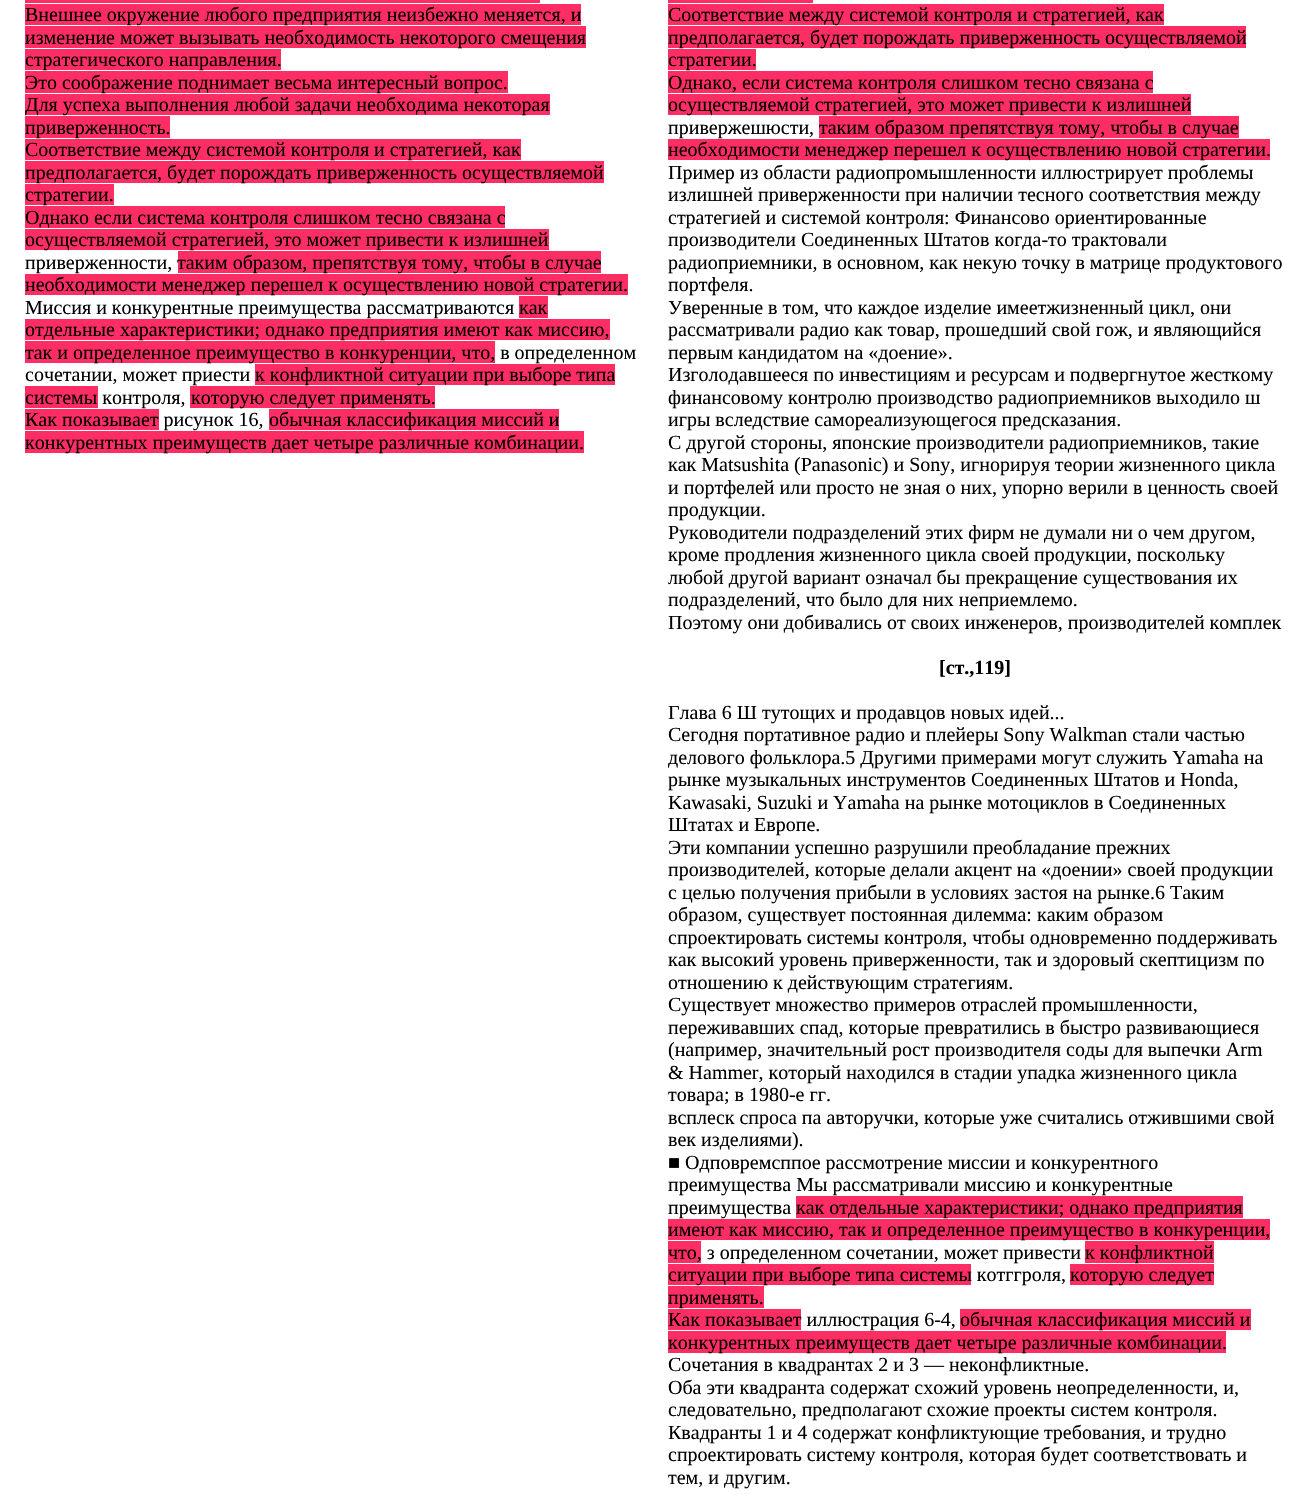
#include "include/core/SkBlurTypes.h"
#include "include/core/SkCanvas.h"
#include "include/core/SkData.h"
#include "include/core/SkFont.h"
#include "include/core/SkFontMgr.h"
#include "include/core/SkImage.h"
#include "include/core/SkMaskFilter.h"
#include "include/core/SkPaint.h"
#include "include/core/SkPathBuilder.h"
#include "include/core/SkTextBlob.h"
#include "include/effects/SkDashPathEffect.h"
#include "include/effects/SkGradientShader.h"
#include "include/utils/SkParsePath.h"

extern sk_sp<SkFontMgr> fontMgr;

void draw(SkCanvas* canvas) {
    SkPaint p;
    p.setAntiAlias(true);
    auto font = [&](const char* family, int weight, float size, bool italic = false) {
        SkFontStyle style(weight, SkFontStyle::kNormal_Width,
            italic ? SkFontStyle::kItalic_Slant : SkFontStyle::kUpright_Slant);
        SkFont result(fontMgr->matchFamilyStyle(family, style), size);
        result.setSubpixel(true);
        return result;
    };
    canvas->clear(0xFFFFFFFF);
    p.setColor(0xFFFE2E64);
    canvas->drawRect(SkRect::MakeLTRB(25, 0, 540, 3), p);
    canvas->drawRect(SkRect::MakeLTRB(25, 4, 581, 25), p);
    auto font1 = font("Liberation Serif", 400, 20);
    p.setColor(0xFF000000);
    canvas->drawString("Внешнее окружение любого предприятия неизбежно меняется, и", 25, 21, font1, p);
    p.setColor(0xFFFE2E64);
    canvas->drawRect(SkRect::MakeLTRB(25, 26, 586, 48), p);
    p.setColor(0xFF000000);
    canvas->drawString("изменение может вызывать необходимость некоторого смещения", 25, 44, font1, p);
    p.setColor(0xFFFE2E64);
    canvas->drawRect(SkRect::MakeLTRB(25, 49, 281, 70), p);
    p.setColor(0xFF000000);
    canvas->drawString("стратегического направления.", 25, 66, font1, p);
    p.setColor(0xFFFE2E64);
    canvas->drawRect(SkRect::MakeLTRB(25, 71, 508, 93), p);
    p.setColor(0xFF000000);
    canvas->drawString("Это соображение поднимает весьма интересный вопрос.", 25, 89, font1, p);
    p.setColor(0xFFFE2E64);
    canvas->drawRect(SkRect::MakeLTRB(25, 94, 550, 115), p);
    p.setColor(0xFF000000);
    canvas->drawString("Для успеха выполнения любой задачи необходима некоторая", 25, 111, font1, p);
    p.setColor(0xFFFE2E64);
    canvas->drawRect(SkRect::MakeLTRB(25, 116, 170, 138), p);
    p.setColor(0xFF000000);
    canvas->drawString("приверженность.", 25, 134, font1, p);
    p.setColor(0xFFFE2E64);
    canvas->drawRect(SkRect::MakeLTRB(25, 139, 521, 160), p);
    p.setColor(0xFF000000);
    canvas->drawString("Соответствие между системой контроля и стратегией, как", 25, 156, font1, p);
    p.setColor(0xFFFE2E64);
    canvas->drawRect(SkRect::MakeLTRB(25, 161, 604, 183), p);
    p.setColor(0xFF000000);
    canvas->drawString("предполагается, будет порождать приверженность осуществляемой", 25, 179, font1, p);
    p.setColor(0xFFFE2E64);
    canvas->drawRect(SkRect::MakeLTRB(25, 184, 114, 205), p);
    p.setColor(0xFF000000);
    canvas->drawString("стратегии.", 25, 201, font1, p);
    p.setColor(0xFFFE2E64);
    canvas->drawRect(SkRect::MakeLTRB(25, 206, 505, 228), p);
    p.setColor(0xFF000000);
    canvas->drawString("Однако если система контроля слишком тесно связана с", 25, 224, font1, p);
    p.setColor(0xFFFE2E64);
    canvas->drawRect(SkRect::MakeLTRB(25, 229, 549, 250), p);
    p.setColor(0xFF000000);
    canvas->drawString("осуществляемой стратегией, это может привести к излишней", 25, 246, font1, p);
    canvas->drawString("приверженности,", 25, 269, font1, p);
    p.setColor(0xFFFE2E64);
    canvas->drawRect(SkRect::MakeLTRB(178, 251, 601, 273), p);
    p.setColor(0xFF000000);
    canvas->drawString("таким образом, препятствуя тому, чтобы в случае", 177, 269, font1, p);
    p.setColor(0xFFFE2E64);
    canvas->drawRect(SkRect::MakeLTRB(25, 274, 628, 295), p);
    p.setColor(0xFF000000);
    canvas->drawString("необходимости менеджер перешел к осуществлению новой стратегии.", 25, 291, font1, p);
    canvas->drawString("Миссия и конкурентные преимущества рассматриваются", 25, 314, font1, p);
    p.setColor(0xFFFE2E64);
    canvas->drawRect(SkRect::MakeLTRB(519, 296, 548, 318), p);
    p.setColor(0xFF000000);
    canvas->drawString("как", 519, 314, font1, p);
    p.setColor(0xFFFE2E64);
    canvas->drawRect(SkRect::MakeLTRB(25, 319, 610, 340), p);
    p.setColor(0xFF000000);
    canvas->drawString("отдельные характеристики; однако предприятия имеют как миссию,", 25, 336, font1, p);
    p.setColor(0xFFFE2E64);
    canvas->drawRect(SkRect::MakeLTRB(25, 341, 495, 363), p);
    p.setColor(0xFF000000);
    canvas->drawString("так и определенное преимущество в конкуренции, что, в определенном", 25, 359, font1, p);
    canvas->drawString("сочетании, может приести", 25, 381, font1, p);
    p.setColor(0xFFFE2E64);
    canvas->drawRect(SkRect::MakeLTRB(255, 364, 615, 385), p);
    p.setColor(0xFF000000);
    canvas->drawString("к конфликтной ситуации при выборе типа", 255, 381, font1, p);
    p.setColor(0xFFFE2E64);
    canvas->drawRect(SkRect::MakeLTRB(25, 386, 98, 408), p);
    p.setColor(0xFF000000);
    canvas->drawString("системы контроля,", 25, 404, font1, p);
    p.setColor(0xFFFE2E64);
    canvas->drawRect(SkRect::MakeLTRB(190, 386, 435, 408), p);
    p.setColor(0xFF000000);
    canvas->drawString("которую следует применять.", 191, 404, font1, p);
    p.setColor(0xFFFE2E64);
    canvas->drawRect(SkRect::MakeLTRB(25, 409, 159, 430), p);
    p.setColor(0xFF000000);
    canvas->drawString("Как показывает рисунок 16,", 25, 426, font1, p);
    p.setColor(0xFFFE2E64);
    canvas->drawRect(SkRect::MakeLTRB(269, 409, 559, 430), p);
    p.setColor(0xFF000000);
    canvas->drawString("обычная классификация миссий и", 269, 426, font1, p);
    p.setColor(0xFFFE2E64);
    canvas->drawRect(SkRect::MakeLTRB(25, 431, 584, 453), p);
    p.setColor(0xFF000000);
    canvas->drawString("конкурентных преимуществ дает четыре различные комбинации.", 25, 449, font1, p);
    p.setColor(0xFFFE2E64);
    canvas->drawRect(SkRect::MakeLTRB(668, 4, 1164, 25), p);
    p.setColor(0xFF000000);
    canvas->drawString("Соответствие между системой контроля и стратегией, как", 668, 21, font1, p);
    p.setColor(0xFFFE2E64);
    canvas->drawRect(SkRect::MakeLTRB(668, 0, 813, 3), p);
    canvas->drawRect(SkRect::MakeLTRB(668, 26, 1246, 48), p);
    p.setColor(0xFF000000);
    canvas->drawString("предполагается, будет порождать приверженность осуществляемой", 668, 44, font1, p);
    p.setColor(0xFFFE2E64);
    canvas->drawRect(SkRect::MakeLTRB(668, 49, 756, 70), p);
    p.setColor(0xFF000000);
    canvas->drawString("стратегии.", 668, 66, font1, p);
    p.setColor(0xFFFE2E64);
    canvas->drawRect(SkRect::MakeLTRB(668, 71, 1153, 93), p);
    p.setColor(0xFF000000);
    canvas->drawString("Однако, если система контроля слишком тесно связана с", 668, 89, font1, p);
    p.setColor(0xFFFE2E64);
    canvas->drawRect(SkRect::MakeLTRB(668, 94, 1191, 115), p);
    p.setColor(0xFF000000);
    canvas->drawString("осуществляемой стратегией, это может привести к излишней", 668, 111, font1, p);
    canvas->drawString("привержешюсти,", 668, 134, font1, p);
    p.setColor(0xFFFE2E64);
    canvas->drawRect(SkRect::MakeLTRB(819, 116, 1239, 138), p);
    p.setColor(0xFF000000);
    canvas->drawString("таким образом препятствуя тому, чтобы в случае", 819, 134, font1, p);
    p.setColor(0xFFFE2E64);
    canvas->drawRect(SkRect::MakeLTRB(668, 139, 1270, 160), p);
    p.setColor(0xFF000000);
    {
        const struct { const char* s; float x, y; } items[] = {
            {"необходимости менеджер перешел к осуществлению новой стратегии.", 668, 156},
            {"Пример из области радиопромышленности иллюстрирует проблемы", 668, 179},
            {"излишней приверженности при наличии тесного соответствия между", 668, 201},
            {"стратегией и системой контроля: Финансово ориентированные", 668, 224},
            {"производители Соединенных Штатов когда-то трактовали", 668, 246},
            {"радиоприемники, в основном, как некую точку в матрице продуктового", 668, 269},
            {"портфеля.", 668, 291},
            {"Уверенные в том, что каждое изделие имеетжизненный цикл, они", 668, 314},
            {"рассматривали радио как товар, прошедший свой гож, и являющийся", 668, 336},
            {"первым кандидатом на «доение».", 668, 359},
            {"Изголодавшееся по инвестициям и ресурсам и подвергнутое жесткому", 668, 381},
            {"финансовому контролю производство радиоприемников выходило ш", 668, 404},
            {"игры вследствие самореализующегося предсказания.", 668, 426},
            {"С другой стороны, японские производители радиоприемников, такие", 668, 449},
            {"как Matsushita (Panasonic) и Sony, игнорируя теории жизненного цикла", 668, 471},
            {"и портфелей или просто не зная о них, упорно верили в ценность своей", 668, 494},
            {"продукции.", 668, 516},
            {"Руководители подразделений этих фирм не думали ни о чем другом,", 668, 539},
            {"кроме продления жизненного цикла своей продукции, поскольку", 668, 561},
            {"любой другой вариант означал бы прекращение существования их", 668, 584},
            {"подразделений, что было для них неприемлемо.", 668, 606},
            {"Поэтому они добивались от своих инженеров, производителей комплек", 668, 629},
        };
        for (auto [s, x, y] : items) {
            canvas->drawString(s, x, y, font1, p);
        }
    }
    auto font2 = font("Liberation Serif", 700, 20);
    canvas->drawString("[ст.,119]", 939, 674, font2, p);
    {
        const struct { const char* s; float x, y; } items[] = {
            {"Глава 6 Ш тутощих и продавцов новых идей...", 668, 719},
            {"Сегодня портативное радио и плейеры Sony Walkman стали частью", 668, 741},
            {"делового фольклора.5 Другими примерами могут служить Yamaha на", 668, 764},
            {"рынке музыкальных инструментов Соединенных Штатов и Honda,", 668, 786},
            {"Kawasaki, Suzuki и Yamaha на рынке мотоциклов в Соединенных", 668, 809},
            {"Штатах и Европе.", 668, 831},
            {"Эти компании успешно разрушили преобладание прежних", 668, 854},
            {"производителей, которые делали акцент на «доении» своей продукции", 668, 876},
            {"с целью получения прибыли в условиях застоя на рынке.6 Таким", 668, 899},
            {"образом, существует постоянная дилемма: каким образом", 668, 921},
            {"спроектировать системы контроля, чтобы одновременно поддерживать", 668, 944},
            {"как высокий уровень приверженности, так и здоровый скептицизм по", 668, 966},
            {"отношению к действующим стратегиям.", 668, 989},
            {"Существует множество примеров отраслей промышленности,", 668, 1011},
            {"переживавших спад, которые превратились в быстро развивающиеся", 668, 1034},
            {"(например, значительный рост производителя соды для выпечки Arm", 668, 1056},
            {"& Hammer, который находился в стадии упадка жизненного цикла", 668, 1079},
            {"товара; в 1980-е гг.", 668, 1101},
            {"всплеск спроса па авторучки, которые уже считались отжившими свой", 668, 1124},
            {"век изделиями).", 668, 1146},
            {"■ Одповремсппое рассмотрение миссии и конкурентного", 668, 1169},
            {"преимущества Мы рассматривали миссию и конкурентные", 668, 1191},
            {"преимущества", 668, 1214},
        };
        for (auto [s, x, y] : items) {
            canvas->drawString(s, x, y, font1, p);
        }
    }
    p.setColor(0xFFFE2E64);
    canvas->drawRect(SkRect::MakeLTRB(796, 1196, 1243, 1218), p);
    p.setColor(0xFF000000);
    canvas->drawString("как отдельные характеристики; однако предприятия", 796, 1214, font1, p);
    p.setColor(0xFFFE2E64);
    canvas->drawRect(SkRect::MakeLTRB(668, 1219, 1270, 1240), p);
    p.setColor(0xFF000000);
    canvas->drawString("имеют как миссию, так и определенное преимущество в конкуренции,", 668, 1236, font1, p);
    p.setColor(0xFFFE2E64);
    canvas->drawRect(SkRect::MakeLTRB(668, 1241, 701, 1263), p);
    p.setColor(0xFF000000);
    canvas->drawString("что, з определенном сочетании, может привести", 668, 1259, font1, p);
    p.setColor(0xFFFE2E64);
    canvas->drawRect(SkRect::MakeLTRB(1085, 1241, 1214, 1263), p);
    p.setColor(0xFF000000);
    canvas->drawString("к конфликтной", 1085, 1259, font1, p);
    p.setColor(0xFFFE2E64);
    canvas->drawRect(SkRect::MakeLTRB(668, 1264, 971, 1285), p);
    p.setColor(0xFF000000);
    canvas->drawString("ситуации при выборе типа системы котггроля,", 668, 1281, font1, p);
    p.setColor(0xFFFE2E64);
    canvas->drawRect(SkRect::MakeLTRB(1070, 1264, 1214, 1285), p);
    p.setColor(0xFF000000);
    canvas->drawString("которую следует", 1070, 1281, font1, p);
    p.setColor(0xFFFE2E64);
    canvas->drawRect(SkRect::MakeLTRB(668, 1286, 764, 1308), p);
    p.setColor(0xFF000000);
    canvas->drawString("применять.", 668, 1304, font1, p);
    p.setColor(0xFFFE2E64);
    canvas->drawRect(SkRect::MakeLTRB(668, 1309, 801, 1330), p);
    p.setColor(0xFF000000);
    canvas->drawString("Как показывает иллюстрация 6-4,", 668, 1326, font1, p);
    p.setColor(0xFFFE2E64);
    canvas->drawRect(SkRect::MakeLTRB(960, 1309, 1251, 1330), p);
    p.setColor(0xFF000000);
    canvas->drawString("обычная классификация миссий и", 960, 1326, font1, p);
    p.setColor(0xFFFE2E64);
    canvas->drawRect(SkRect::MakeLTRB(668, 1331, 1226, 1353), p);
    p.setColor(0xFF000000);
    {
        const struct { const char* s; float x, y; } items[] = {
            {"конкурентных преимуществ дает четыре различные комбинации.", 668, 1349},
            {"Сочетания в квадрантах 2 и 3 — неконфликтные.", 668, 1371},
            {"Оба эти квадранта содержат схожий уровень неопределенности, и,", 668, 1394},
            {"следовательно, предполагают схожие проекты систем контроля.", 668, 1416},
            {"Квадранты 1 и 4 содержат конфликтующие требования, и трудно", 668, 1439},
            {"спроектировать систему контроля, которая будет соответствовать и", 668, 1461},
            {"тем, и другим.", 668, 1484},
        };
        for (auto [s, x, y] : items) {
            canvas->drawString(s, x, y, font1, p);
        }
    }
}
